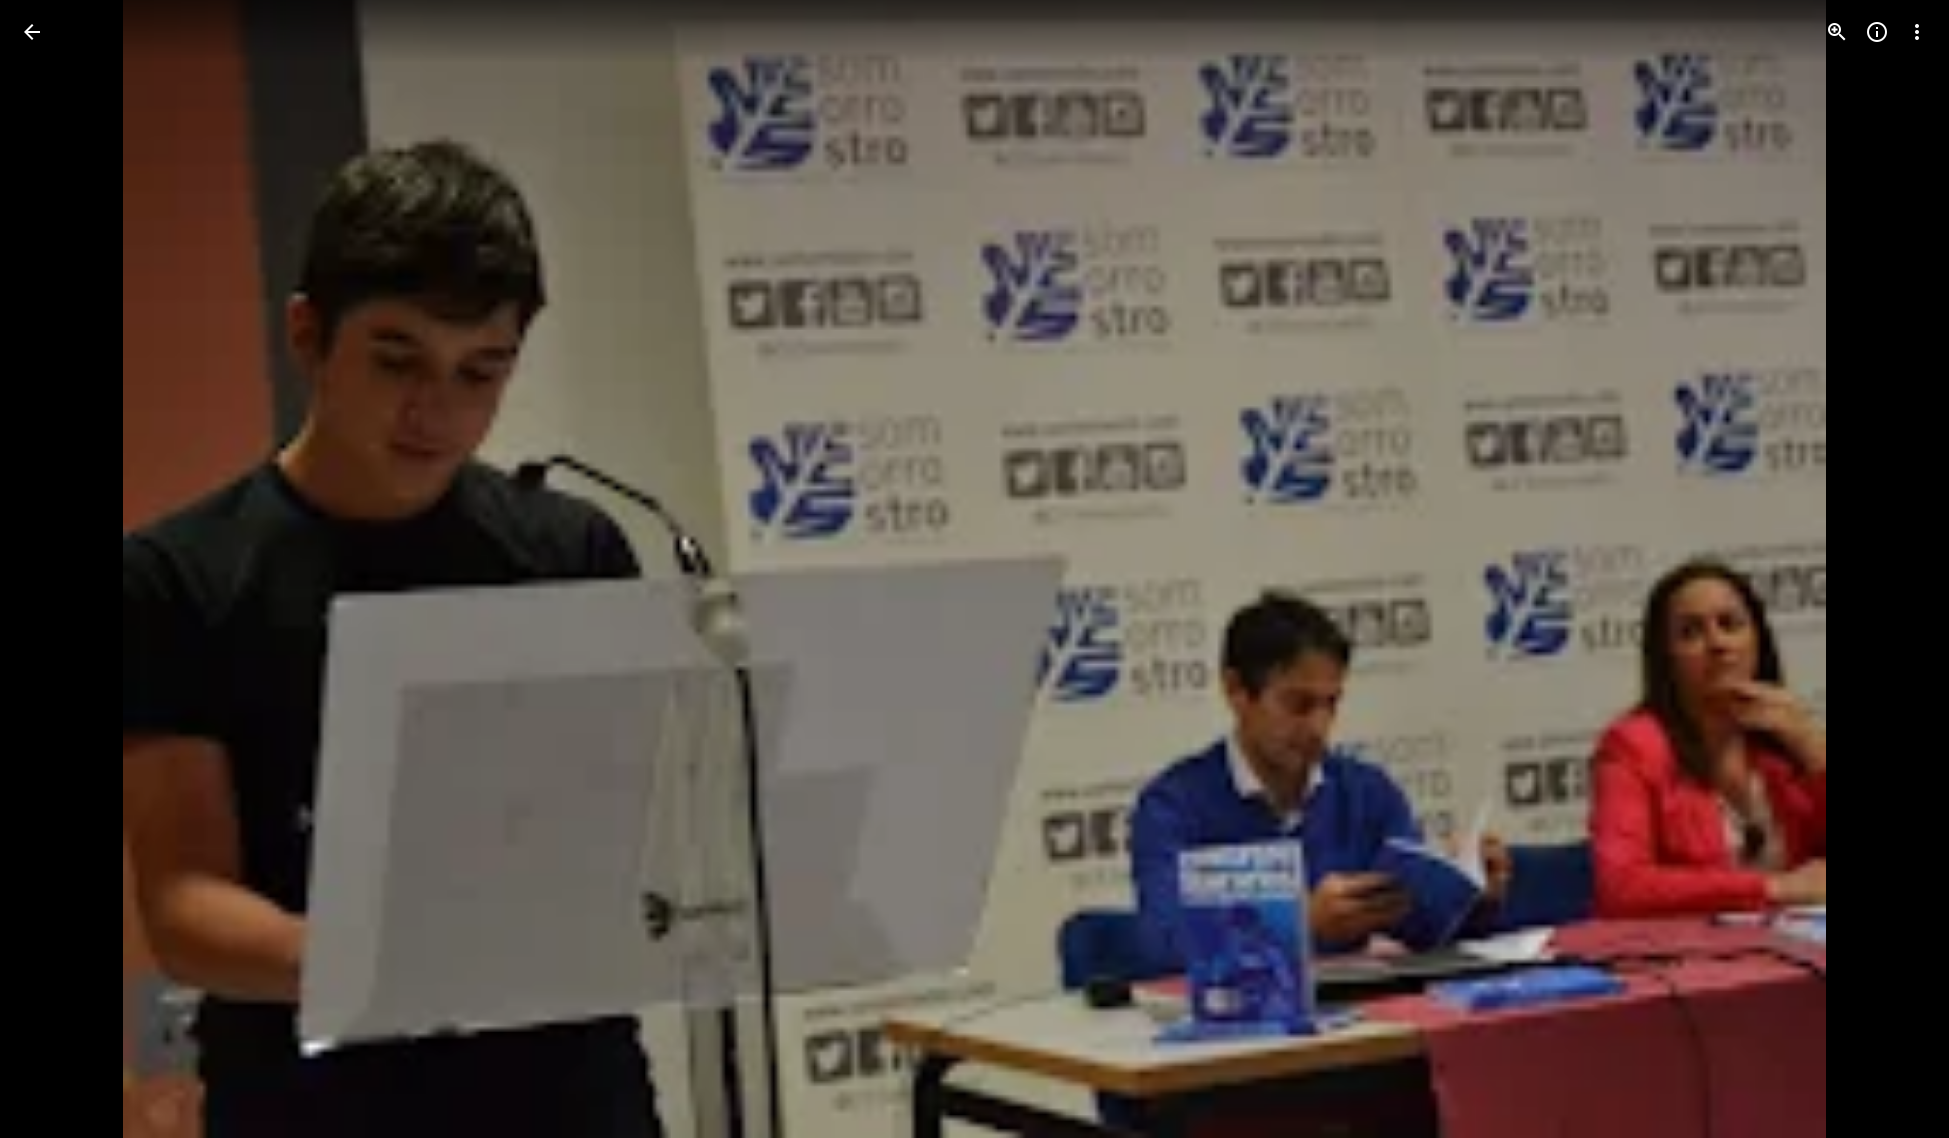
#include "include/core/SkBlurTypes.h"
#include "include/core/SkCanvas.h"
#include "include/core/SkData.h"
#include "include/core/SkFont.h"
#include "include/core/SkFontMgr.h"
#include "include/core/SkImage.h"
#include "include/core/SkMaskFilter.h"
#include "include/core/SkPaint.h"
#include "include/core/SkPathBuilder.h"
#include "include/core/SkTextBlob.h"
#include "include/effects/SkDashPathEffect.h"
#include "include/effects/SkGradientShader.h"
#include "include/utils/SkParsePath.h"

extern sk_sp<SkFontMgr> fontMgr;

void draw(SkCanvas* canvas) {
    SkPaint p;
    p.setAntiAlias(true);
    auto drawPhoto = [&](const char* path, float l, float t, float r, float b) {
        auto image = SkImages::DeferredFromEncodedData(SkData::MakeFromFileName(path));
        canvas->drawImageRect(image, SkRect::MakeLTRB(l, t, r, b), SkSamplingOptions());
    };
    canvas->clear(0xFF000000);
    drawPhoto("media/5.png", 123, 0, 1826, 1138);
    {
        const SkColor colors[] = {0x99000000, 0x00000000};
        const float stops[] = {0, 1};
        const SkPoint ends[] = {{975, 0}, {975, 64}};
        p.setShader(SkGradientShader::MakeLinear(ends, colors, stops, 2, SkTileMode::kClamp));
        p.setAlpha(255);
    }
    canvas->drawRect(SkRect::MakeLTRB(123, 0, 1826, 62), p);
    drawPhoto("media/1.png", 24, 24, 40, 40);
    drawPhoto("media/2.png", 1828, 23, 1846, 41);
    drawPhoto("media/3.png", 1867, 22, 1887, 42);
    drawPhoto("media/4.png", 1915, 24, 1919, 40);
}
